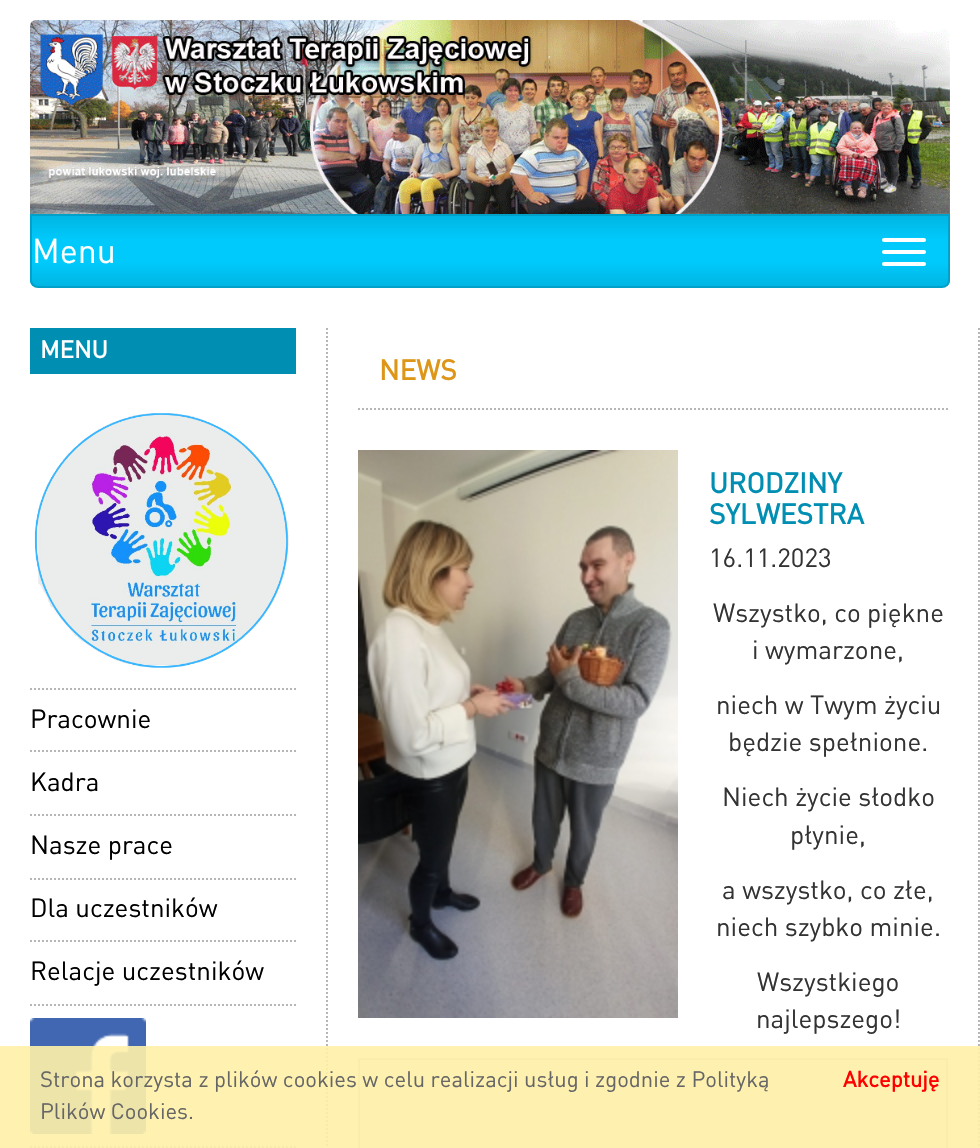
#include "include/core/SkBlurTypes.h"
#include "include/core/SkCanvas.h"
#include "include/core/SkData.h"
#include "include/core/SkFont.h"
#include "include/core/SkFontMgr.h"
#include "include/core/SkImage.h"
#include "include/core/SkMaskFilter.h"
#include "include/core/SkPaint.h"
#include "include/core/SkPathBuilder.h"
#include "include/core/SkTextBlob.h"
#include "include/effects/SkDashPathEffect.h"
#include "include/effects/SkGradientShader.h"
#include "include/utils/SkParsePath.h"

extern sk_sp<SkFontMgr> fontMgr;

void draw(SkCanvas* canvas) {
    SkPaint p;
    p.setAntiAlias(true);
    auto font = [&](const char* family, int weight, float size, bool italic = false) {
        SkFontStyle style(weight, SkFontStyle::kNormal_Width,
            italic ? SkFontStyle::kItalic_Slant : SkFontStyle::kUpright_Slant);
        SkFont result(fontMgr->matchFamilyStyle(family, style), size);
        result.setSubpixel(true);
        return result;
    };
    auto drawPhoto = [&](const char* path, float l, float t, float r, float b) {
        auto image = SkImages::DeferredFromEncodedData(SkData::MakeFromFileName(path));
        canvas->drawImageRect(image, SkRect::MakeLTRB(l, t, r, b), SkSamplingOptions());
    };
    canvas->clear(0xFFFFFFFF);
    drawPhoto("media/1.png", 30, 20, 950, 214);
    canvas->save();
    canvas->clipPath(SkPathBuilder().moveTo(30, 214).lineTo(950, 214).lineTo(950, 280).cubicTo(950, 284.5f, 946.5f, 288, 942, 288).lineTo(38, 288).cubicTo(33.5f, 288, 30, 284.5f, 30, 280).close().detach(), true);
    {
        const SkColor colors[] = {0xFF00B6E3, 0xFF00CAFC, 0xFF00CAFC, 0xFF00B6E3};
        const float stops[] = {0, 0.35f, 0.65f, 1};
        const SkPoint ends[] = {{490, 216}, {490, 286}};
        p.setShader(SkGradientShader::MakeLinear(ends, colors, stops, 4, SkTileMode::kClamp));
        p.setAlpha(255);
    }
    canvas->drawRect(SkRect::MakeLTRB(30, 216, 950, 286), p);
    canvas->restore();
    p.setStyle(SkPaint::kStroke_Style);
    p.setStrokeWidth(2);
    p.setShader(nullptr);
    p.setColor(0xFF00A1C9);
    canvas->drawPath(SkPathBuilder().moveTo(31, 215).lineTo(949, 215).lineTo(949, 280).cubicTo(949, 284, 946, 287, 942, 287).lineTo(38, 287).cubicTo(34, 287, 31, 284, 31, 280).close().detach(), p);
    auto font1 = font("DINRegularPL", 400, 34);
    p.setStyle(SkPaint::kFill_Style);
    p.setColor(0xFFFFFFFF);
    canvas->drawString("Menu", 32, 263, font1, p);
    canvas->drawRoundRect(SkRect::MakeLTRB(882, 238, 926, 242), 2, 2, p);
    canvas->drawRoundRect(SkRect::MakeLTRB(882, 250, 926, 254), 2, 2, p);
    canvas->drawRoundRect(SkRect::MakeLTRB(882, 262, 926, 266), 2, 2, p);
    p.setColor(0xFF008EB2);
    canvas->drawRect(SkRect::MakeLTRB(30, 328, 296, 374), p);
    auto font2 = font("DINRegularPL", 700, 24);
    p.setColor(0xFFFFFFFF);
    canvas->drawString("MENU", 40, 358, font2, p);
    p.setStyle(SkPaint::kStroke_Style);
    p.setColor(0xFFB6B6B6);
    p.setPathEffect(SkDashPathEffect::Make({{2, 2}}, 0));
    canvas->drawPath(SkPathBuilder().moveTo(30, 689).lineTo(296, 689).detach(), p);
    p.setPathEffect(nullptr);
    drawPhoto("media/2.png", 34, 413, 289, 668);
    p.setPathEffect(SkDashPathEffect::Make({{2, 2}}, 0));
    canvas->drawPath(SkPathBuilder().moveTo(30, 751).lineTo(296, 751).detach(), p);
    p.setPathEffect(nullptr);
    auto font3 = font("DINRegularPL", 400, 26);
    p.setStyle(SkPaint::kFill_Style);
    p.setColor(0xFF000000);
    canvas->drawString("Pracownie", 30, 728, font3, p);
    p.setStyle(SkPaint::kStroke_Style);
    p.setColor(0xFFB6B6B6);
    p.setPathEffect(SkDashPathEffect::Make({{2, 2}}, 0));
    canvas->drawPath(SkPathBuilder().moveTo(30, 815).lineTo(296, 815).detach(), p);
    p.setPathEffect(nullptr);
    p.setStyle(SkPaint::kFill_Style);
    p.setColor(0xFF000000);
    canvas->drawString("Kadra", 30, 791, font3, p);
    p.setStyle(SkPaint::kStroke_Style);
    p.setColor(0xFFB6B6B6);
    p.setPathEffect(SkDashPathEffect::Make({{2, 2}}, 0));
    canvas->drawPath(SkPathBuilder().moveTo(30, 879).lineTo(296, 879).detach(), p);
    p.setPathEffect(nullptr);
    p.setStyle(SkPaint::kFill_Style);
    p.setColor(0xFF000000);
    canvas->drawString("Nasze prace", 30, 854, font3, p);
    p.setStyle(SkPaint::kStroke_Style);
    p.setColor(0xFFB6B6B6);
    p.setPathEffect(SkDashPathEffect::Make({{2, 2}}, 0));
    canvas->drawPath(SkPathBuilder().moveTo(30, 941).lineTo(296, 941).detach(), p);
    p.setPathEffect(nullptr);
    p.setStyle(SkPaint::kFill_Style);
    p.setColor(0xFF000000);
    canvas->drawString("Dla uczestników", 30, 917, font3, p);
    p.setStyle(SkPaint::kStroke_Style);
    p.setColor(0xFFB6B6B6);
    p.setPathEffect(SkDashPathEffect::Make({{2, 2}}, 0));
    canvas->drawPath(SkPathBuilder().moveTo(30, 1005).lineTo(296, 1005).detach(), p);
    p.setPathEffect(nullptr);
    p.setStyle(SkPaint::kFill_Style);
    p.setColor(0xFF000000);
    canvas->drawString("Relacje uczestników", 30, 980, font3, p);
    p.setStyle(SkPaint::kStroke_Style);
    p.setColor(0xFFB6B6B6);
    p.setPathEffect(SkDashPathEffect::Make({{2, 2}}, 0));
    canvas->drawPath(SkPathBuilder().moveTo(30, 1147).lineTo(296, 1147).detach(), p);
    p.setPathEffect(nullptr);
    drawPhoto("media/3.png", 30, 1018, 146, 1134);
    p.setPathEffect(SkDashPathEffect::Make({{2, 2}}, 0));
    canvas->drawPath(SkPathBuilder().moveTo(979, 328).lineTo(979, 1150).detach(), p);
    p.setPathEffect(nullptr);
    p.setPathEffect(SkDashPathEffect::Make({{2, 2}}, 0));
    canvas->drawPath(SkPathBuilder().moveTo(327, 328).lineTo(327, 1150).detach(), p);
    p.setPathEffect(nullptr);
    p.setPathEffect(SkDashPathEffect::Make({{2, 2}}, 0));
    canvas->drawPath(SkPathBuilder().moveTo(358, 409).lineTo(948, 409).detach(), p);
    p.setPathEffect(nullptr);
    auto font4 = font("DINRegularPL", 700, 28);
    p.setStyle(SkPaint::kFill_Style);
    p.setColor(0xFFDD9618);
    canvas->drawString("NEWS", 379, 380, font4, p);
    drawPhoto("media/4.png", 358, 450, 678, 1018);
    p.setColor(0xFF008EB2);
    canvas->drawString("URODZINY", 709, 493, font4, p);
    canvas->drawString("SYLWESTRA", 709, 524, font4, p);
    p.setColor(0xFF333333);
    {
        const struct { const char* s; float x, y; } items[] = {
            {"16.11.2023", 709, 567},
            {"Wszystko, co piękne", 713, 622},
            {"i wymarzone,", 752, 659},
            {"niech w Twym życiu", 716, 714},
            {"będzie spełnione.", 728, 751},
            {"Niech życie słodko", 722, 806},
            {"płynie,", 790, 844},
            {"a wszystko, co złe,", 722, 899},
            {"niech szybko minie.", 716, 936},
            {"Wszystkiego", 757, 991},
            {"najlepszego!", 756, 1028},
        };
        for (auto [s, x, y] : items) {
            canvas->drawString(s, x, y, font3, p);
        }
    }
    p.setColor(0xFFEEEEEE);
    canvas->drawRect(SkRect::MakeLTRB(359, 1059, 947, 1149), p);
    p.setStyle(SkPaint::kStroke_Style);
    p.setColor(0xFFCCCCCC);
    canvas->drawRect(SkRect::MakeLTRB(359, 1059, 947, 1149), p);
    p.setStyle(SkPaint::kFill_Style);
    p.setColor(0xE6FFF1A8);
    canvas->drawRect(SkRect::MakeLTRB(0, 1046, 980, 1148), p);
    auto font5 = font("DINRegularPL", 400, 22);
    p.setColor(0xFF666666);
    canvas->drawString("Strona korzysta z plików cookies w celu realizacji usług i zgodnie z Polityką", 40, 1087, font5, p);
    canvas->drawString("Plików Cookies.", 40, 1119, font5, p);
    auto font6 = font("DINRegularPL", 700, 22);
    p.setColor(0xFFFF0000);
    canvas->drawString("Akceptuję", 843, 1087, font6, p);
}
